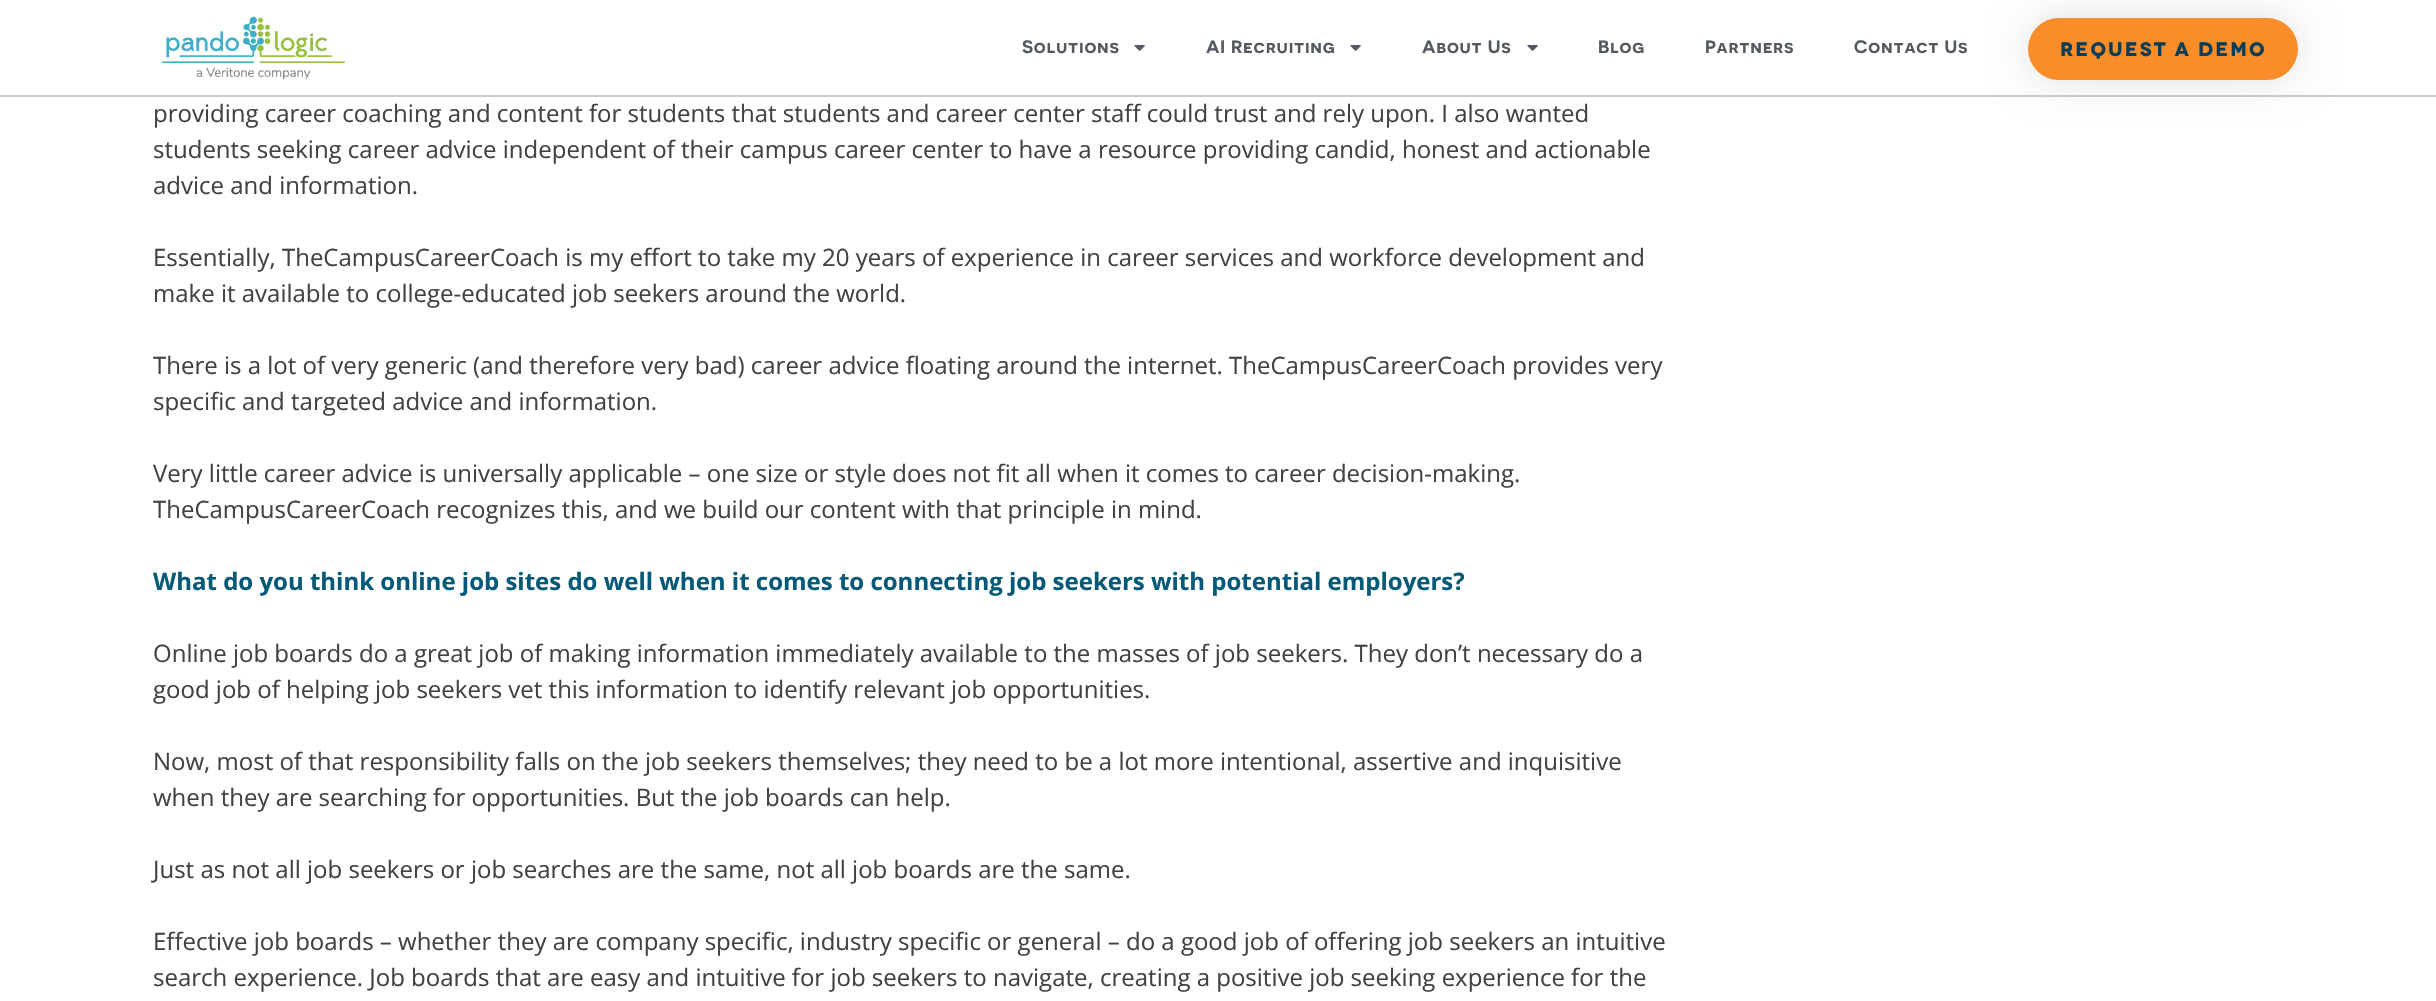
#include "include/core/SkBlurTypes.h"
#include "include/core/SkCanvas.h"
#include "include/core/SkData.h"
#include "include/core/SkFont.h"
#include "include/core/SkFontMgr.h"
#include "include/core/SkImage.h"
#include "include/core/SkMaskFilter.h"
#include "include/core/SkPaint.h"
#include "include/core/SkPathBuilder.h"
#include "include/core/SkTextBlob.h"
#include "include/effects/SkDashPathEffect.h"
#include "include/effects/SkGradientShader.h"
#include "include/utils/SkParsePath.h"

extern sk_sp<SkFontMgr> fontMgr;

void draw(SkCanvas* canvas) {
    SkPaint p;
    p.setAntiAlias(true);
    auto font = [&](const char* family, int weight, float size, bool italic = false) {
        SkFontStyle style(weight, SkFontStyle::kNormal_Width,
            italic ? SkFontStyle::kItalic_Slant : SkFontStyle::kUpright_Slant);
        SkFont result(fontMgr->matchFamilyStyle(family, style), size);
        result.setSubpixel(true);
        return result;
    };
    auto drawTracked = [&](const char* s, float x, float y, const SkFont& font, const SkPaint& ink, float letter, float word) {
        std::vector<SkGlyphID> glyphs(font.countText(s, strlen(s), SkTextEncoding::kUTF8));
        std::vector<float> xs(glyphs.size());
        font.textToGlyphs(s, strlen(s), SkTextEncoding::kUTF8, glyphs);
        font.getXPos(glyphs, xs, x);
        float extra = 0;
        for (size_t i = 0; i < glyphs.size(); i++) {
            xs[i] += extra;
            extra += letter + word * (glyphs[i] == font.unicharToGlyph(' '));
        }
        canvas->drawTextBlob(SkTextBlob::MakeFromPosHGlyphs(glyphs, xs, y, font), 0, 0, ink);
    };
    auto drawPhoto = [&](const char* path, float l, float t, float r, float b) {
        auto image = SkImages::DeferredFromEncodedData(SkData::MakeFromFileName(path));
        canvas->drawImageRect(image, SkRect::MakeLTRB(l, t, r, b), SkSamplingOptions());
    };
    canvas->clear(0xFFFFFFFF);
    p.setColor(0xFFCCCCCC);
    canvas->drawRect(SkRect::MakeLTRB(0, 95, 2436, 97), p);
    drawPhoto("media/1.png", 161, 16, 346, 80);
    auto font1 = font("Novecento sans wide", 600, 18);
    p.setColor(0xFF54595F);
    drawTracked("Solutions", 1022, 53, font1, p, 0.75f, 0);
    drawPhoto("media/2.png", 1134, 45, 1145, 51);
    drawTracked("AI Recruiting", 1206, 53, font1, p, 0.75f, 0);
    drawPhoto("media/2.png", 1350, 45, 1361, 51);
    drawTracked("About Us", 1422, 53, font1, p, 0.75f, 0);
    drawPhoto("media/2.png", 1527, 45, 1538, 51);
    drawTracked("Blog", 1598, 53, font1, p, 0.75f, 0);
    drawTracked("Partners", 1705, 53, font1, p, 0.75f, 0);
    p.setColor(0x1F000000);
    p.setMaskFilter(SkMaskFilter::MakeBlur(kNormal_SkBlurStyle, 20));
    canvas->drawRoundRect(SkRect::MakeLTRB(2028, 18, 2298, 80), 31, 31, p);
    p.setMaskFilter(nullptr);
    p.setColor(0xFF54595F);
    drawTracked("Contact Us", 1854, 53, font1, p, 0.75f, 0);
    p.setColor(0xFFF98D29);
    canvas->drawRoundRect(SkRect::MakeLTRB(2028, 18, 2298, 80), 31, 31, p);
    auto font2 = font("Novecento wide", 700, 19.5f);
    p.setColor(0xFF0D3D56);
    drawTracked("REQUEST A DEMO", 2060, 56, font2, p, 2.1f, 0);
    auto font3 = font("Open Sans", 400, 24);
    p.setColor(0xFF424143);
    {
        const struct { const char* s; float x, y; } items[] = {
            {"providing career coaching and content for students that students and career center staff could trust and rely upon. I also wanted", 153, 122},
            {"students seeking career advice independent of their campus career center to have a resource providing candid, honest and actionable", 153, 158},
            {"advice and information.", 153, 194},
            {"Essentially, TheCampusCareerCoach is my effort to take my 20 years of experience in career services and workforce development and", 153, 266},
            {"make it available to college-educated job seekers around the world.", 153, 302},
            {"There is a lot of very generic (and therefore very bad) career advice floating around the internet. TheCampusCareerCoach provides very", 153, 374},
            {"specific and targeted advice and information.", 153, 410},
            {"Very little career advice is universally applicable – one size or style does not fit all when it comes to career decision-making.", 153, 482},
            {"TheCampusCareerCoach recognizes this, and we build our content with that principle in mind.", 153, 518},
        };
        for (auto [s, x, y] : items) {
            canvas->drawString(s, x, y, font3, p);
        }
    }
    auto font4 = font("Open Sans", 700, 24);
    p.setColor(0xFF035A78);
    canvas->drawString("What do you think online job sites do well when it comes to connecting job seekers with potential employers?", 153, 590, font4, p);
    p.setColor(0xFF424143);
    {
        const struct { const char* s; float x, y; } items[] = {
            {"Online job boards do a great job of making information immediately available to the masses of job seekers. They don’t necessary do a", 153, 662},
            {"good job of helping job seekers vet this information to identify relevant job opportunities.", 153, 698},
            {"Now, most of that responsibility falls on the job seekers themselves; they need to be a lot more intentional, assertive and inquisitive", 153, 770},
            {"when they are searching for opportunities. But the job boards can help.", 153, 806},
            {"Just as not all job seekers or job searches are the same, not all job boards are the same.", 153, 878},
            {"Effective job boards – whether they are company specific, industry specific or general – do a good job of offering job seekers an intuitive", 153, 950},
            {"search experience. Job boards that are easy and intuitive for job seekers to navigate, creating a positive job seeking experience for the", 153, 986},
        };
        for (auto [s, x, y] : items) {
            canvas->drawString(s, x, y, font3, p);
        }
    }
}
